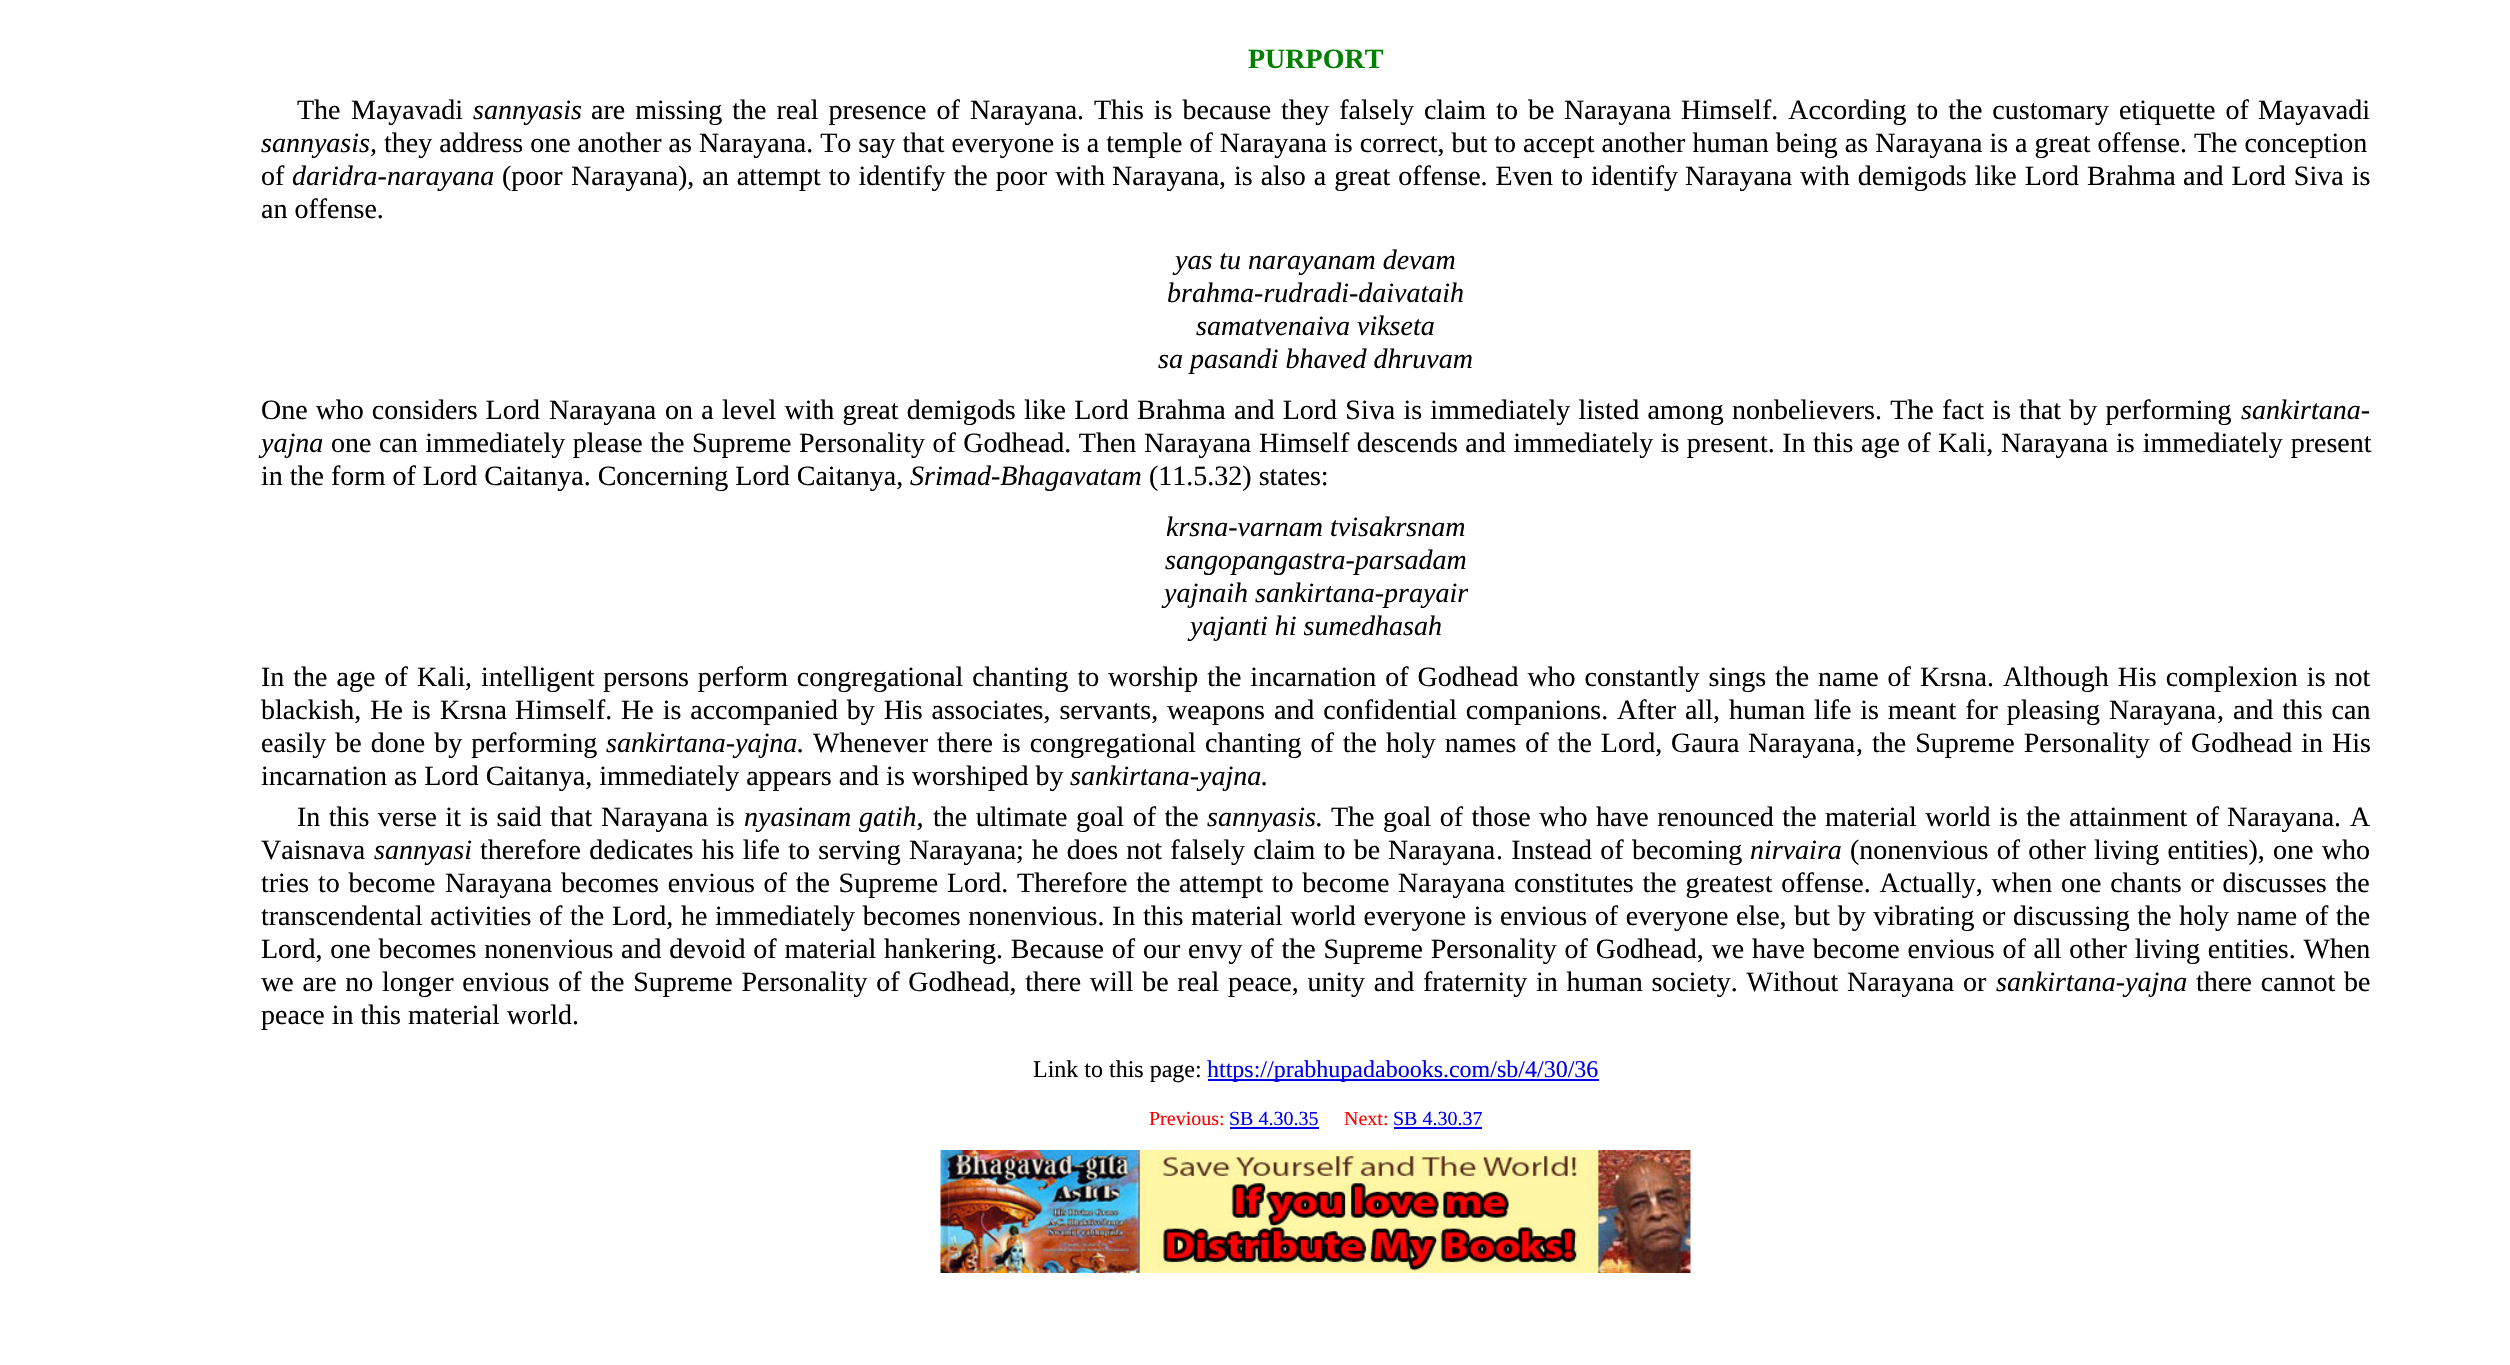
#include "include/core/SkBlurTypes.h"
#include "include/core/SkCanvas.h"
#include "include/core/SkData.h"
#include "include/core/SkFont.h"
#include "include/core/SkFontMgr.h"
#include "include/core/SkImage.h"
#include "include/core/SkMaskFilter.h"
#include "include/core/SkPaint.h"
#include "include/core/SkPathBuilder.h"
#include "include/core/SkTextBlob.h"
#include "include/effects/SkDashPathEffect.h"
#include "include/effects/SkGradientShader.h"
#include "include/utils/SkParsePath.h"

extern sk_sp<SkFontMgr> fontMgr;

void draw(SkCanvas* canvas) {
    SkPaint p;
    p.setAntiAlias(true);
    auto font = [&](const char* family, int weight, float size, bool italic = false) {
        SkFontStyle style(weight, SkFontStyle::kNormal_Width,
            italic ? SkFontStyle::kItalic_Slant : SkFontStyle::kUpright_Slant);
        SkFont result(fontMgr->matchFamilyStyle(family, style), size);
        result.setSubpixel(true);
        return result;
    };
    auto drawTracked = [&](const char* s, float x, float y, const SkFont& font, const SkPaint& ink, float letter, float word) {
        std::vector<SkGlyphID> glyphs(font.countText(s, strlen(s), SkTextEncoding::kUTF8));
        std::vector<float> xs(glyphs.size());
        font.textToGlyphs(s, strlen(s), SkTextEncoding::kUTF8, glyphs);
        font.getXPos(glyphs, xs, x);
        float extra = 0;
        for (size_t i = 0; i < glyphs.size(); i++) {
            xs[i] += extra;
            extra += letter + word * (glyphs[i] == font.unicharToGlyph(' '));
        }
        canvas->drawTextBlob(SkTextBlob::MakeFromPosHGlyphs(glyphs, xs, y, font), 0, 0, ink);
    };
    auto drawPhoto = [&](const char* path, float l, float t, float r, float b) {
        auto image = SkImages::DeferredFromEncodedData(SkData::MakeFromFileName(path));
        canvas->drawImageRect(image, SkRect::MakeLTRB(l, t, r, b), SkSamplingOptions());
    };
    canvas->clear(0xFFFFFFFF);
    auto font1 = font("Liberation Serif", 700, 28);
    p.setColor(0xFF008000);
    canvas->drawString("PURPORT", 1248, 68, font1, p);
    auto font2 = font("Liberation Serif", 400, 28);
    p.setColor(0xFF000000);
    canvas->drawString("The", 297, 119, font2, p);
    canvas->drawString("Mayavadi", 351, 119, font2, p);
    auto font3 = font("Liberation Serif", 400, 28, true);
    canvas->drawString("sannyasis", 473, 119, font3, p);
    drawTracked("are missing the real presence of", 591, 119, font2, p, 0, 3);
    canvas->drawString("Narayana", 970, 119, font2, p);
    drawTracked(". This is because they falsely claim to be", 1077, 119, font2, p, 0, 3);
    canvas->drawString("Narayana", 1564, 119, font2, p);
    drawTracked("Himself. According to the customary etiquette of", 1681, 119, font2, p, 0, 3);
    canvas->drawString("Mayavadi", 2258, 119, font2, p);
    canvas->drawString("sannyasis,", 261, 152, font3, p);
    canvas->drawString("they address one another as Narayana. To say that everyone is a temple of Narayana is correct, but to accept another human being as Narayana is a great offense. The conception", 384, 152, font2, p);
    canvas->drawString("of", 261, 185, font2, p);
    canvas->drawString("daridra-narayana", 292, 185, font3, p);
    canvas->drawString("(poor", 502, 185, font2, p);
    canvas->drawString("Narayana", 571, 185, font2, p);
    drawTracked("), an attempt to identify the poor with", 678, 185, font2, p, 0, 1);
    canvas->drawString("Narayana", 1112, 185, font2, p);
    drawTracked(", is also a great offense. Even to identify", 1219, 185, font2, p, 0, 1);
    canvas->drawString("Narayana", 1685, 185, font2, p);
    drawTracked("with demigods like Lord", 1800, 185, font2, p, 0, 1);
    canvas->drawString("Brahma", 2087, 185, font2, p);
    drawTracked("and Lord Siva is", 2183, 185, font2, p, 0, 1);
    canvas->drawString("an offense.", 261, 218, font2, p);
    {
        const struct { const char* s; float x, y; } items[] = {
            {"yas tu narayanam devam", 1175, 269},
            {"brahma-rudradi-daivataih", 1167, 302},
            {"samatvenaiva vikseta", 1196, 335},
            {"sa pasandi bhaved dhruvam", 1158, 368},
        };
        for (auto [s, x, y] : items) {
            canvas->drawString(s, x, y, font3, p);
        }
    }
    drawTracked("One who considers Lord", 261, 419, font2, p, 0, 1);
    canvas->drawString("Narayana", 549, 419, font2, p);
    drawTracked("on a level with great demigods like Lord", 665, 419, font2, p, 0, 1.25f);
    canvas->drawString("Brahma", 1137, 419, font2, p);
    drawTracked("and Lord Siva is immediately listed among nonbelievers. The fact is that by performing", 1234, 419, font2, p, 0, 1.25f);
    canvas->drawString("sankirtana-", 2241, 419, font3, p);
    canvas->drawString("yajna", 261, 452, font3, p);
    drawTracked("one can immediately please the Supreme Personality of Godhead. Then", 331, 452, font2, p, 0, 0.5f);
    canvas->drawString("Narayana", 1144, 452, font2, p);
    drawTracked("Himself descends and immediately is present. In this age of", 1259, 452, font2, p, 0, 0.5f);
    canvas->drawString("Kali,", 1938, 452, font2, p);
    canvas->drawString("Narayana", 2001, 452, font2, p);
    drawTracked("is immediately present", 2116, 452, font2, p, 0, 1);
    canvas->drawString("in the form of Lord Caitanya. Concerning Lord Caitanya,", 261, 485, font2, p);
    canvas->drawString("Srimad-Bhagavatam", 910, 485, font3, p);
    canvas->drawString("(11.5.32) states:", 1149, 485, font2, p);
    {
        const struct { const char* s; float x, y; } items[] = {
            {"krsna-varnam tvisakrsnam", 1166, 536},
            {"sangopangastra-parsadam", 1165, 569},
            {"yajnaih sankirtana-prayair", 1164, 602},
            {"yajanti hi sumedhasah", 1190, 635},
        };
        for (auto [s, x, y] : items) {
            canvas->drawString(s, x, y, font3, p);
        }
    }
    drawTracked("In the age of", 261, 686, font2, p, 0, 2);
    canvas->drawString("Kali", 417, 686, font2, p);
    drawTracked(", intelligent persons perform congregational chanting to worship the incarnation of Godhead who constantly sings the name of", 465, 686, font2, p, 0, 1.9f);
    canvas->drawString("Krsna", 1920, 686, font2, p);
    drawTracked(". Although His complexion is not", 1987, 686, font2, p, 0, 2);
    drawTracked("blackish, He is", 261, 719, font2, p, 0, 2);
    canvas->drawString("Krsna", 440, 719, font2, p);
    drawTracked("Himself. He is accompanied by His associates, servants, weapons and confidential companions. After all, human life is meant for pleasing", 515, 719, font2, p, 0, 1.9f);
    canvas->drawString("Narayana", 2109, 719, font2, p);
    drawTracked(", and this can", 2217, 719, font2, p, 0, 1.9f);
    drawTracked("easily be done by performing", 261, 752, font2, p, 0, 2);
    canvas->drawString("sankirtana-yajna.", 606, 752, font3, p);
    drawTracked("Whenever there is congregational chanting of the holy names of the Lord,", 813, 752, font2, p, 0, 2);
    canvas->drawString("Gaura", 1671, 752, font2, p);
    canvas->drawString("Narayana", 1748, 752, font2, p);
    drawTracked(", the Supreme Personality of Godhead in His", 1856, 752, font2, p, 0, 2);
    canvas->drawString("incarnation as Lord Caitanya, immediately appears and is worshiped by", 261, 785, font2, p);
    canvas->drawString("sankirtana-yajna.", 1070, 785, font3, p);
    drawTracked("In this verse it is said that", 297, 826, font2, p, 0, 1.5f);
    canvas->drawString("Narayana", 601, 826, font2, p);
    canvas->drawString("is", 716, 826, font2, p);
    canvas->drawString("nyasinam", 744, 826, font3, p);
    canvas->drawString("gatih,", 859, 826, font3, p);
    drawTracked("the ultimate goal of the", 933, 826, font2, p, 0, 1.5f);
    canvas->drawString("sannyasis.", 1207, 826, font3, p);
    drawTracked("The goal of those who have renounced the material world is the attainment of", 1331, 826, font2, p, 0, 1.5f);
    canvas->drawString("Narayana", 2227, 826, font2, p);
    drawTracked(". A", 2334, 826, font2, p, 0, 2);
    canvas->drawString("Vaisnava", 261, 859, font2, p);
    canvas->drawString("sannyasi", 374, 859, font3, p);
    drawTracked("therefore dedicates his life to serving", 480, 859, font2, p, 0, 1.25f);
    canvas->drawString("Narayana", 909, 859, font2, p);
    drawTracked("; he does not falsely claim to be", 1016, 859, font2, p, 0, 1.25f);
    canvas->drawString("Narayana", 1388, 859, font2, p);
    drawTracked(". Instead of becoming", 1496, 859, font2, p, 0, 1.25f);
    canvas->drawString("nirvaira", 1750, 859, font3, p);
    drawTracked("(nonenvious of other living entities), one who", 1850, 859, font2, p, 0, 1.25f);
    drawTracked("tries to become", 261, 892, font2, p, 0, 1.75f);
    canvas->drawString("Narayana", 445, 892, font2, p);
    drawTracked("becomes envious of the Supreme Lord. Therefore the attempt to become", 561, 892, font2, p, 0, 1.75f);
    canvas->drawString("Narayana", 1398, 892, font2, p);
    drawTracked("constitutes the greatest offense. Actually, when one chants or discusses the", 1514, 892, font2, p, 0, 1.75f);
    drawTracked("transcendental activities of the Lord, he immediately becomes nonenvious. In this material world everyone is envious of everyone else, but by vibrating or discussing the holy name of the", 261, 925, font2, p, 0, 0.65f);
    drawTracked("Lord, one becomes nonenvious and devoid of material hankering. Because of our envy of the Supreme Personality of Godhead, we have become envious of all other living entities. When", 261, 958, font2, p, 0, 0.8f);
    drawTracked("we are no longer envious of the Supreme Personality of Godhead, there will be real peace, unity and fraternity in human society. Without", 261, 991, font2, p, 0, 1.75f);
    canvas->drawString("Narayana", 1847, 991, font2, p);
    canvas->drawString("or", 1963, 991, font2, p);
    canvas->drawString("sankirtana-yajna", 1996, 991, font3, p);
    drawTracked("there cannot be", 2196, 991, font2, p, 0, 1.75f);
    canvas->drawString("peace in this material world.", 261, 1024, font2, p);
    auto font4 = font("Liberation Serif", 400, 24);
    canvas->drawString("Link to this page:", 1033, 1077, font4, p);
    p.setColor(0xFF0000EE);
    canvas->drawRect(SkRect::MakeLTRB(1208, 1079, 1599, 1081), p);
    canvas->drawString("https://prabhupadabooks.com/sb/4/30/36", 1207, 1077, font4, p);
    auto font5 = font("Liberation Serif", 400, 20);
    p.setColor(0xFFFF0000);
    canvas->drawString("Previous:", 1149, 1125, font5, p);
    p.setColor(0xFF0000EE);
    canvas->drawString("SB 4.30.35", 1229, 1125, font5, p);
    canvas->drawRect(SkRect::MakeLTRB(1230, 1127, 1319, 1129), p);
    p.setColor(0xFFFF0000);
    canvas->drawString("Next:", 1344, 1125, font5, p);
    p.setColor(0xFF0000EE);
    canvas->drawString("SB 4.30.37", 1393, 1125, font5, p);
    canvas->drawRect(SkRect::MakeLTRB(1394, 1127, 1482, 1129), p);
    drawPhoto("media/1.png", 940, 1150, 1691, 1273);
}
